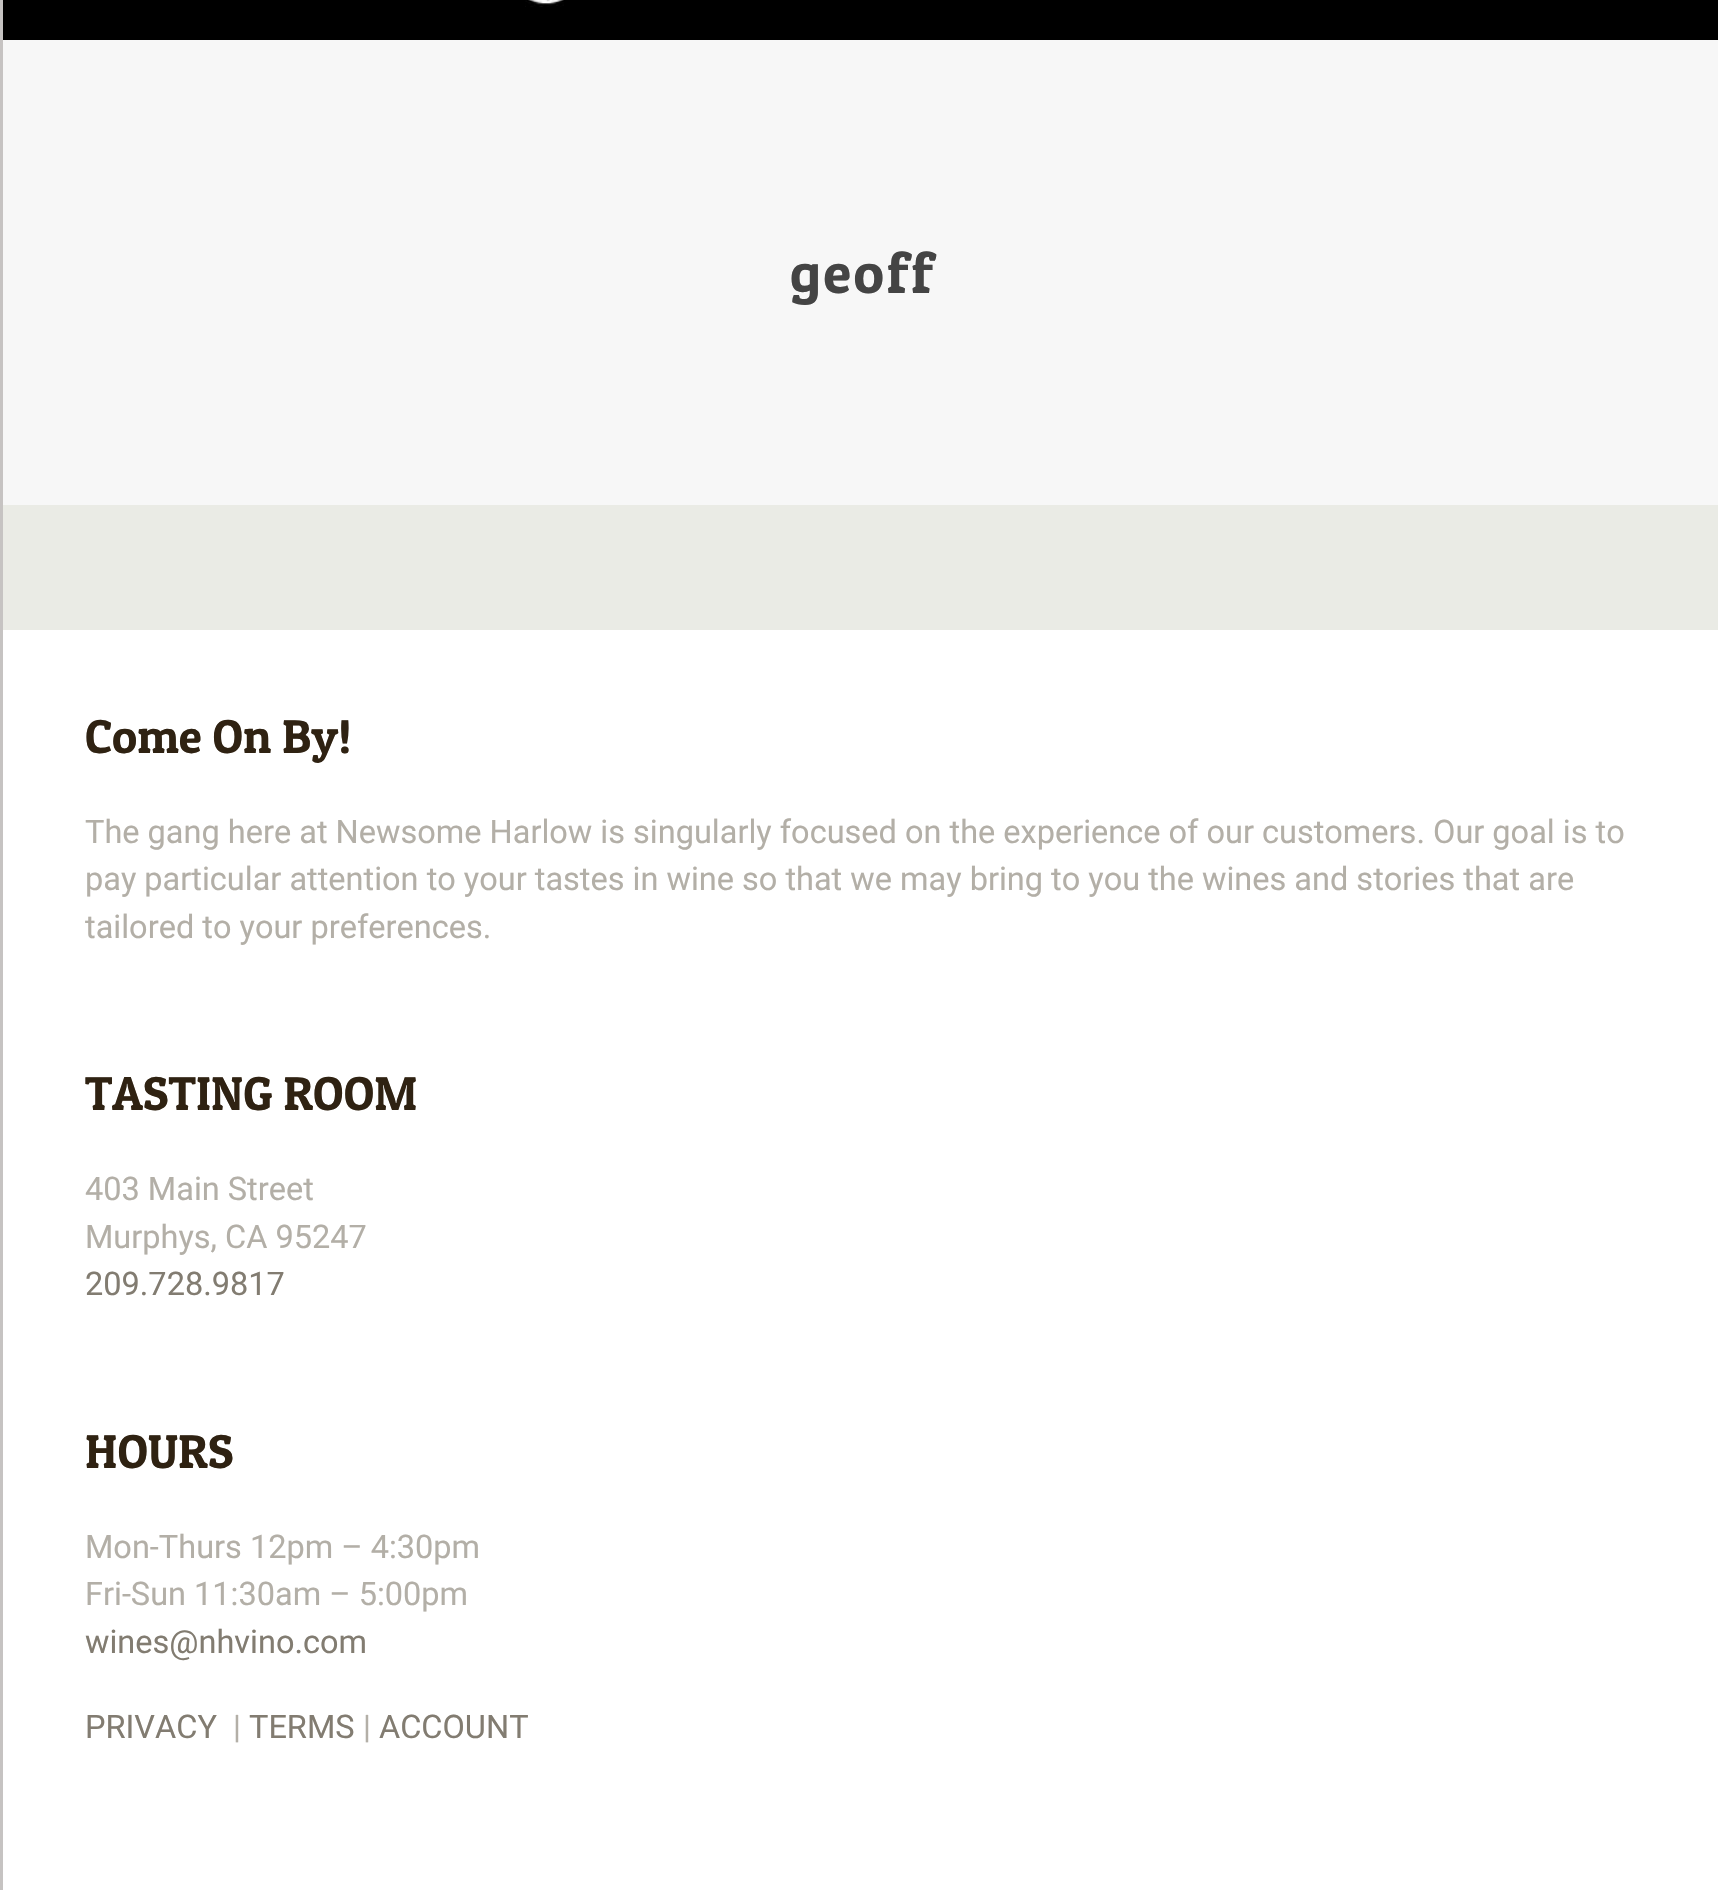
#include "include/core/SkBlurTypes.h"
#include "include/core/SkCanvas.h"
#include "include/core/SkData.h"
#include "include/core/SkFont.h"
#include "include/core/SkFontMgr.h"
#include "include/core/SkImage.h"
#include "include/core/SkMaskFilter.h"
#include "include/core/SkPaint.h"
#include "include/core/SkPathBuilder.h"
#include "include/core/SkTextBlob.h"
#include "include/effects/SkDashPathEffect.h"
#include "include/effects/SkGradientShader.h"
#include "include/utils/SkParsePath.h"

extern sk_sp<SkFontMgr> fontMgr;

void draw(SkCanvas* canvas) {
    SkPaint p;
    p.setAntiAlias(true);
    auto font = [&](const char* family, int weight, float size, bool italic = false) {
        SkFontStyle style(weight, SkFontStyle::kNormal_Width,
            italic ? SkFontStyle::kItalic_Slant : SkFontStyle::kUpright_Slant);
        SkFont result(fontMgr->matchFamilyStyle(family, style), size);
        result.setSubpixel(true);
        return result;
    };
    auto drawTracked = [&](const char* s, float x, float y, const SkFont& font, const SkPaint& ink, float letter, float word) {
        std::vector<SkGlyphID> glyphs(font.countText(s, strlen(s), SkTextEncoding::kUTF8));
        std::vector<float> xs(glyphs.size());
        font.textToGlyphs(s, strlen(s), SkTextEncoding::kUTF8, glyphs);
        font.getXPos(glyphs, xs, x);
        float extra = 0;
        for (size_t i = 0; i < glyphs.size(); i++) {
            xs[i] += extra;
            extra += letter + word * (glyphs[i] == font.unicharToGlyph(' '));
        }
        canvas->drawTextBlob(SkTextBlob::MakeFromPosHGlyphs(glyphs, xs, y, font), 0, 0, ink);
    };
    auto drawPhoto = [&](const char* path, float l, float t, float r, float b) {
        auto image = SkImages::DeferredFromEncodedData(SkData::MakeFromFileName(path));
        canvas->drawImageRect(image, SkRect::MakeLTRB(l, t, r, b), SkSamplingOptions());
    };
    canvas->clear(0xFFFFFFFF);
    p.setStyle(SkPaint::kStroke_Style);
    p.setStrokeWidth(3);
    p.setColor(0xFFC6C3C2);
    canvas->drawRect(SkRect::MakeLTRB(1.5f, -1.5f, 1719.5f, 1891.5f), p);
    p.setStyle(SkPaint::kFill_Style);
    p.setColor(0xFF000000);
    canvas->drawRect(SkRect::MakeLTRB(3, 0, 1718, 40), p);
    drawPhoto("media/1.png", 525, 0, 564, 7);
    p.setColor(0xFFF7F7F7);
    canvas->drawRect(SkRect::MakeLTRB(3, 40, 1718, 505), p);
    auto font1 = font("Patua One", 400, 57.5f);
    p.setColor(0xFF444444);
    drawTracked("geoff", 790, 293, font1, p, 2.5f, 0);
    p.setColor(0xFFEAEBE5);
    canvas->drawRect(SkRect::MakeLTRB(3, 505, 1718, 630), p);
    auto font2 = font("Patua One", 400, 47.5f);
    p.setColor(0xFF2F2212);
    canvas->drawString("Come On By!", 85, 753, font2, p);
    auto font3 = font("Roboto", 400, 32.5f);
    p.setColor(0xFFB3AFA7);
    {
        const struct { const char* s; float x, y; } items[] = {
            {"The gang here at Newsome Harlow is singularly focused on the experience of our customers. Our goal is to", 85, 843},
            {"pay particular attention to your tastes in wine so that we may bring to you the wines and stories that are", 85, 890},
            {"tailored to your preferences.", 85, 938},
        };
        for (auto [s, x, y] : items) {
            canvas->drawString(s, x, y, font3, p);
        }
    }
    p.setColor(0xFF2F2212);
    canvas->drawString("TASTING ROOM", 85, 1110, font2, p);
    p.setColor(0xFFB3AFA7);
    canvas->drawString("403 Main Street", 85, 1200, font3, p);
    canvas->drawString("Murphys, CA 95247", 85, 1248, font3, p);
    p.setColor(0xFF827C71);
    canvas->drawString("209.728.9817", 85, 1295, font3, p);
    p.setColor(0xFF2F2212);
    canvas->drawString("HOURS", 85, 1468, font2, p);
    p.setColor(0xFFB3AFA7);
    canvas->drawString("Mon-Thurs 12pm – 4:30pm", 85, 1558, font3, p);
    canvas->drawString("Fri-Sun 11:30am – 5:00pm", 85, 1605, font3, p);
    p.setColor(0xFF827C71);
    canvas->drawString("wines@nhvino.com", 85, 1653, font3, p);
    canvas->drawString("PRIVACY", 85, 1738, font3, p);
    p.setColor(0xFFB3AFA7);
    canvas->drawString("|", 233, 1738, font3, p);
    p.setColor(0xFF827C71);
    canvas->drawString("TERMS", 249, 1738, font3, p);
    p.setColor(0xFFB3AFA7);
    canvas->drawString("|", 363, 1738, font3, p);
    p.setColor(0xFF827C71);
    canvas->drawString("ACCOUNT", 379, 1738, font3, p);
}
